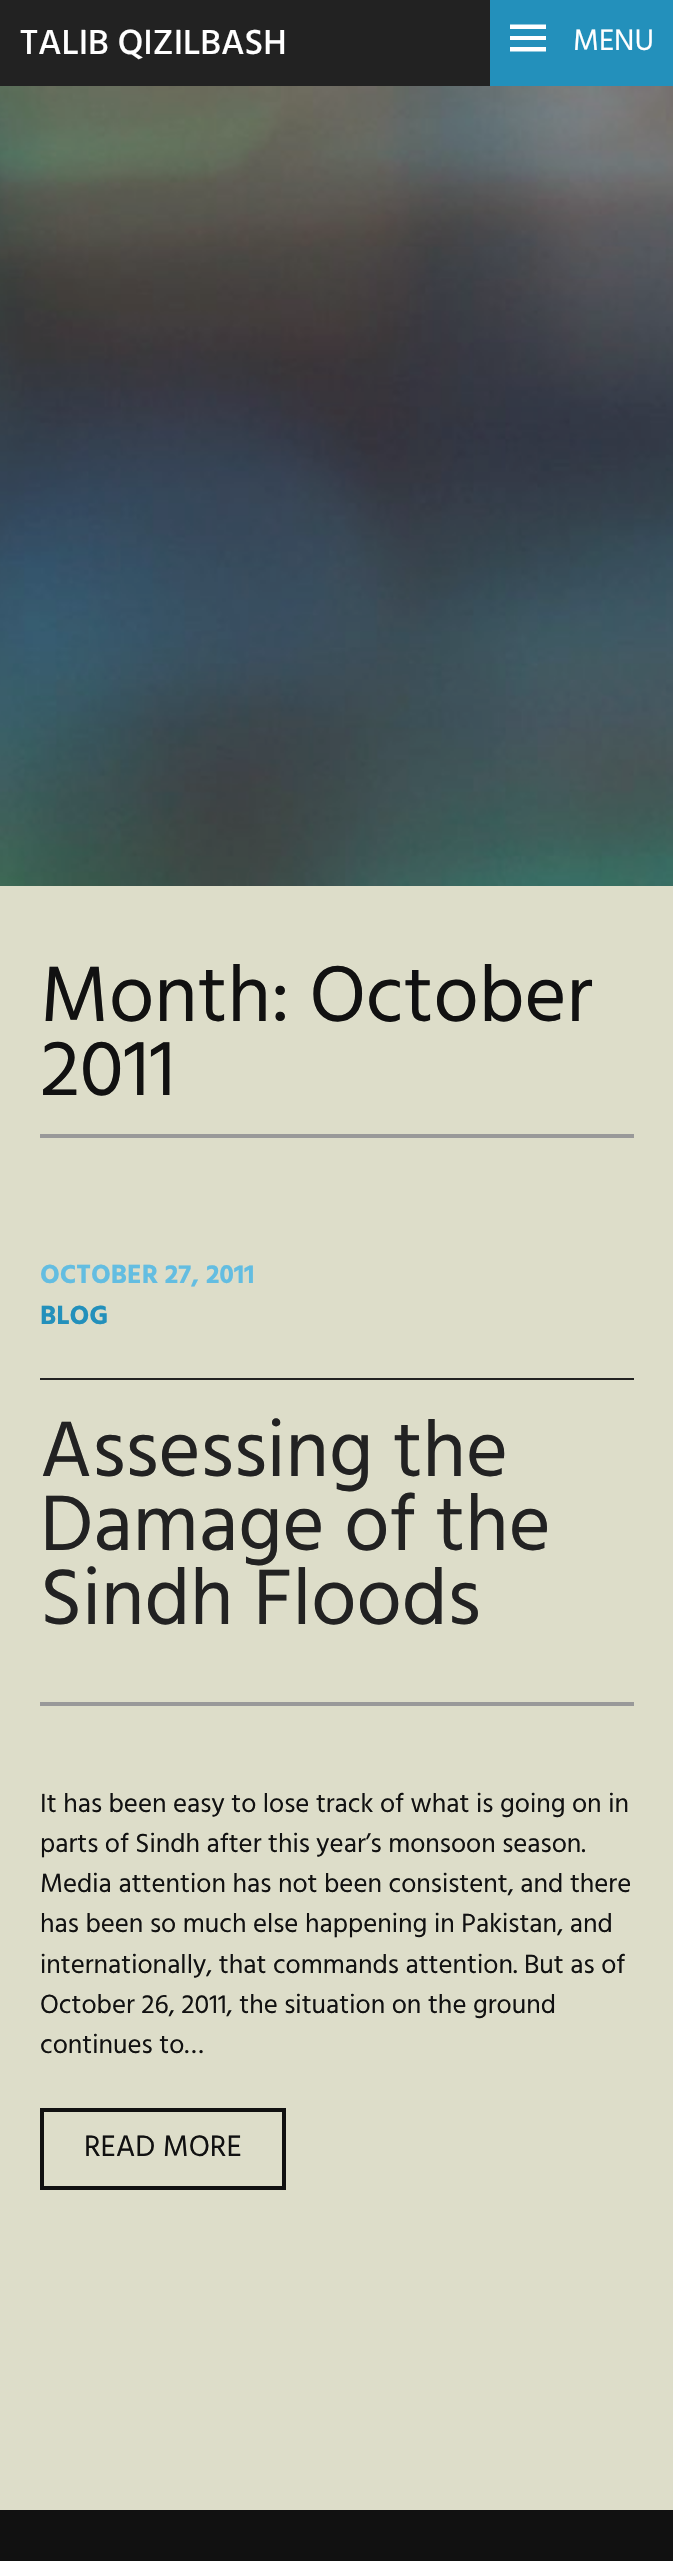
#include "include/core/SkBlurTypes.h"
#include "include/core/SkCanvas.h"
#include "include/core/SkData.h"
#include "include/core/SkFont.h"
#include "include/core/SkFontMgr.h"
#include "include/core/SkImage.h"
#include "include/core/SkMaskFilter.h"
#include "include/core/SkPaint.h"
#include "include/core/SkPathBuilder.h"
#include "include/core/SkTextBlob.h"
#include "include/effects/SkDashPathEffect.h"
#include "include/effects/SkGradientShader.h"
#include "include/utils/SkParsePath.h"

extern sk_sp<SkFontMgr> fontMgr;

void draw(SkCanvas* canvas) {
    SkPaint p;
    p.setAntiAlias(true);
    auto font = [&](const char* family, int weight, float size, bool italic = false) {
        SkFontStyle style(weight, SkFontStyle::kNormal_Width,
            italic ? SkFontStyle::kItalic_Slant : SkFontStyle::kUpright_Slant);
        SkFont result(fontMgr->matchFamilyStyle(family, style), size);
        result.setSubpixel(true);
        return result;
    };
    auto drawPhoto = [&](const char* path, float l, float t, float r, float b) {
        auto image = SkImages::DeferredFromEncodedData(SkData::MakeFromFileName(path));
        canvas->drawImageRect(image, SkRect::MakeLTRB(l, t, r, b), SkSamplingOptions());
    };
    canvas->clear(0xFFDDDDC9);
    p.setColor(0xFF222222);
    canvas->drawRect(SkRect::MakeLTRB(0, 0, 490, 86), p);
    auto font1 = font("Hind", 500, 35.75f);
    p.setColor(0xFFFFFFFF);
    canvas->drawString("TALIB QIZILBASH", 20, 54, font1, p);
    p.setColor(0xFF2390BB);
    canvas->drawRect(SkRect::MakeLTRB(490, 0, 673, 86), p);
    p.setColor(0xFFFFFFFF);
    canvas->drawPath(SkPathBuilder().moveTo(510, 51.5f).lineTo(510, 47).lineTo(546, 47).lineTo(546, 51.5f).close().moveTo(510, 24.5f).lineTo(546, 24.5f).lineTo(546, 29).lineTo(510, 29).close().moveTo(510, 40).lineTo(510, 36).lineTo(546, 36).lineTo(546, 40).close().detach(), p);
    auto font2 = font("Hind", 400, 30.25f);
    canvas->drawString("MENU", 573, 50, font2, p);
    drawPhoto("media/1.png", 0, 86, 673, 886);
    p.setColor(0xFF999999);
    canvas->drawRect(SkRect::MakeLTRB(40, 1134, 634, 1138), p);
    auto font3 = font("Hind", 400, 80.5f);
    p.setColor(0xFF111111);
    canvas->drawString("Month: October", 40, 1021, font3, p);
    canvas->drawString("2011", 40, 1095, font3, p);
    p.setColor(0xFF222222);
    canvas->drawRect(SkRect::MakeLTRB(40, 1378, 634, 1380), p);
    auto font4 = font("Hind", 700, 26.9f);
    p.setColor(0xFF63BDE1);
    canvas->drawString("OCTOBER 27, 2011", 40, 1283, font4, p);
    p.setColor(0xFF2390BB);
    canvas->drawString("BLOG", 40, 1324, font4, p);
    p.setColor(0xFF999999);
    canvas->drawRect(SkRect::MakeLTRB(40, 1702, 634, 1706), p);
    p.setColor(0xFF222222);
    {
        const struct { const char* s; float x, y; } items[] = {
            {"Assessing the", 40, 1476},
            {"Damage of the", 40, 1550},
            {"Sindh Floods", 40, 1624},
        };
        for (auto [s, x, y] : items) {
            canvas->drawString(s, x, y, font3, p);
        }
    }
    auto font5 = font("Hind", 400, 26.9f);
    p.setColor(0xFF111111);
    {
        const struct { const char* s; float x, y; } items[] = {
            {"It has been easy to lose track of what is going on in", 40, 1812},
            {"parts of Sindh after this year’s monsoon season.", 40, 1852},
            {"Media attention has not been consistent, and there", 40, 1892},
            {"has been so much else happening in Pakistan, and", 40, 1932},
            {"internationally, that commands attention. But as of", 40, 1973},
            {"October 26, 2011, the situation on the ground", 40, 2013},
            {"continues to…", 40, 2053},
        };
        for (auto [s, x, y] : items) {
            canvas->drawString(s, x, y, font5, p);
        }
    }
    p.setStyle(SkPaint::kStroke_Style);
    p.setStrokeWidth(4);
    canvas->drawRect(SkRect::MakeLTRB(42, 2110, 284, 2188), p);
    p.setStyle(SkPaint::kFill_Style);
    canvas->drawString("READ MORE", 84, 2156, font2, p);
    canvas->drawRect(SkRect::MakeLTRB(0, 2510, 673, 2561), p);
}
